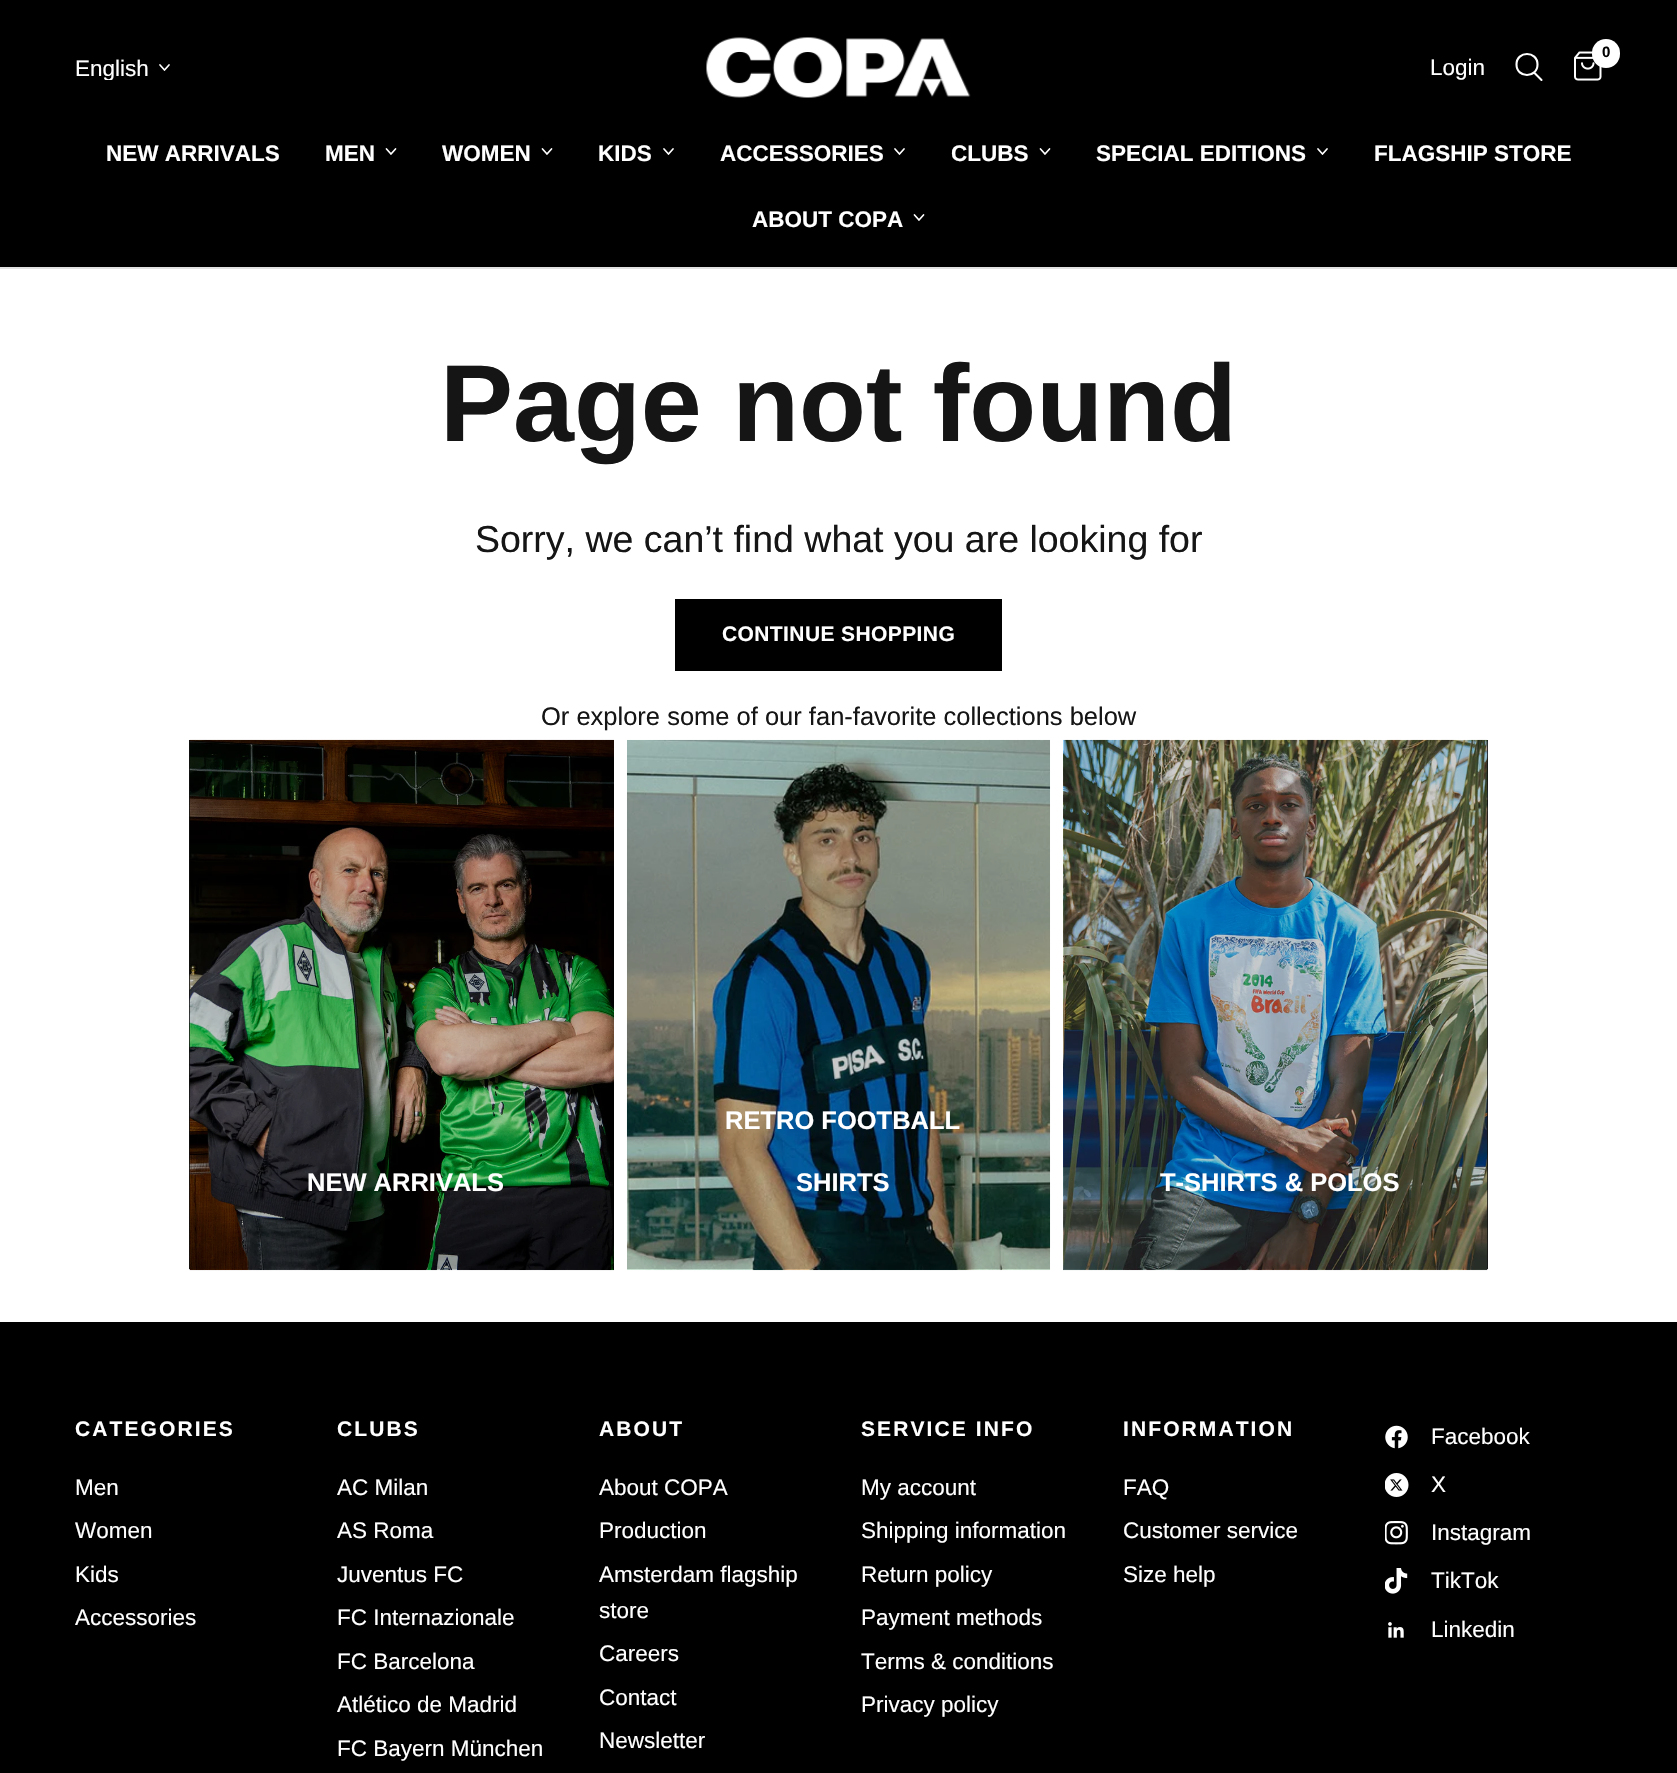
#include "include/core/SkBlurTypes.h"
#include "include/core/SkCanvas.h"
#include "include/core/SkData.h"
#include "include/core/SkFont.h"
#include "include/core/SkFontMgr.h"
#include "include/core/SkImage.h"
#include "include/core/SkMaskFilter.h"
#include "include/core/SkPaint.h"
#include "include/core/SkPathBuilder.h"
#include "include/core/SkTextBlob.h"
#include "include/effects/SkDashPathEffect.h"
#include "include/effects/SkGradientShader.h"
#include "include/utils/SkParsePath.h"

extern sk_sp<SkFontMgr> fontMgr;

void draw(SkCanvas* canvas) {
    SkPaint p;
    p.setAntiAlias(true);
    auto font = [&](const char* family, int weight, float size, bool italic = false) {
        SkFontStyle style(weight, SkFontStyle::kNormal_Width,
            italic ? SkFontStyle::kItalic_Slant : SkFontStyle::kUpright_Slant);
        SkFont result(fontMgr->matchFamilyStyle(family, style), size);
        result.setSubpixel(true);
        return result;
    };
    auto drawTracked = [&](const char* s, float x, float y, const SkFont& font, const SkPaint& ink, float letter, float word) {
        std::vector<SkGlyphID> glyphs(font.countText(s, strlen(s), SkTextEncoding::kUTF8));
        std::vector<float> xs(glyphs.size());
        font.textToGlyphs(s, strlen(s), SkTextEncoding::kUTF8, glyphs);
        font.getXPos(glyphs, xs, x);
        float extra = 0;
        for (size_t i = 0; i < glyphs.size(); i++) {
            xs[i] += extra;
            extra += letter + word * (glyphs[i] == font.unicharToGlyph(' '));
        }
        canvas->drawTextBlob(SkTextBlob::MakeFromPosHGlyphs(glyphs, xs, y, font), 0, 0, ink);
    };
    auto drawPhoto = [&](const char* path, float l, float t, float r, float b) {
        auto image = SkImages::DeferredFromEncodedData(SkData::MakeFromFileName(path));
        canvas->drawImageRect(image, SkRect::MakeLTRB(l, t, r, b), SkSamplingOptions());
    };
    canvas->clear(0xFFFFFFFF);
    p.setColor(0xFF000000);
    canvas->drawRect(SkRect::MakeLTRB(0, 0, 1677, 267), p);
    p.setColor(0xFFE2E2E2);
    canvas->drawRect(SkRect::MakeLTRB(0, 267, 1677, 269), p);
    canvas->save();
    canvas->clipRect(SkRect::MakeLTRB(75, 57, 153, 80));
    auto font1 = font("Liberation Sans", 400, 22.5f);
    p.setColor(0xFFFFFFFF);
    canvas->drawString("English", 75, 76, font1, p);
    canvas->restore();
    p.setStyle(SkPaint::kStroke_Style);
    p.setStrokeWidth(1.7f);
    p.setStrokeCap(SkPaint::kRound_Cap);
    p.setStrokeJoin(SkPaint::kRound_Join);
    canvas->drawPath(SkPathBuilder().moveTo(169, 65).lineTo(164.5f, 70).lineTo(160, 65).detach(), p);
    drawPhoto("media/1.png", 706, 37, 971, 98);
    p.setStyle(SkPaint::kFill_Style);
    canvas->drawString("Login", 1430, 75, font1, p);
    p.setStyle(SkPaint::kStroke_Style);
    p.setStrokeWidth(2.1f);
    canvas->drawPath(SkPathBuilder().moveTo(1534.5f, 73).lineTo(1541.5f, 80).moveTo(1537.5f, 64.5f).cubicTo(1537.5f, 78.5f, 1516.5f, 78.5f, 1516.5f, 64.5f).cubicTo(1516.5f, 50.5f, 1537.5f, 50.5f, 1537.5f, 64.5f).close().detach(), p);
    drawPhoto("media/2.png", 1574, 51, 1602, 81);
    p.setStyle(SkPaint::kFill_Style);
    canvas->drawRoundRect(SkRect::MakeLTRB(1592, 39, 1620, 68), 14, 14, p);
    auto font2 = font("Liberation Sans", 700, 15);
    p.setColor(0xFF000000);
    canvas->drawString("0", 1602, 57, font2, p);
    auto font3 = font("Liberation Sans", 700, 22.5f);
    p.setColor(0xFFFFFFFF);
    canvas->drawString("NEW ARRIVALS", 106, 161, font3, p);
    canvas->drawString("MEN", 325, 161, font3, p);
    p.setStyle(SkPaint::kStroke_Style);
    p.setStrokeWidth(1.7f);
    canvas->drawPath(SkPathBuilder().moveTo(395.5f, 149).lineTo(391, 154).lineTo(386.5f, 149).detach(), p);
    p.setStyle(SkPaint::kFill_Style);
    canvas->drawString("WOMEN", 442, 161, font3, p);
    p.setStyle(SkPaint::kStroke_Style);
    canvas->drawPath(SkPathBuilder().moveTo(551.5f, 149).lineTo(547, 154).lineTo(542.5f, 149).detach(), p);
    p.setStyle(SkPaint::kFill_Style);
    canvas->drawString("KIDS", 598, 161, font3, p);
    p.setStyle(SkPaint::kStroke_Style);
    canvas->drawPath(SkPathBuilder().moveTo(673, 149).lineTo(668.5f, 154).lineTo(664, 149).detach(), p);
    p.setStyle(SkPaint::kFill_Style);
    canvas->drawString("ACCESSORIES", 720, 161, font3, p);
    p.setStyle(SkPaint::kStroke_Style);
    canvas->drawPath(SkPathBuilder().moveTo(904, 149).lineTo(899.5f, 154).lineTo(895, 149).detach(), p);
    p.setStyle(SkPaint::kFill_Style);
    canvas->drawString("CLUBS", 951, 161, font3, p);
    p.setStyle(SkPaint::kStroke_Style);
    canvas->drawPath(SkPathBuilder().moveTo(1049.5f, 149).lineTo(1045, 154).lineTo(1040.5f, 149).detach(), p);
    p.setStyle(SkPaint::kFill_Style);
    canvas->drawString("SPECIAL EDITIONS", 1096, 161, font3, p);
    p.setStyle(SkPaint::kStroke_Style);
    canvas->drawPath(SkPathBuilder().moveTo(1327, 149).lineTo(1322.5f, 154).lineTo(1318, 149).detach(), p);
    p.setStyle(SkPaint::kFill_Style);
    canvas->drawString("FLAGSHIP STORE", 1374, 161, font3, p);
    canvas->drawString("ABOUT COPA", 752, 227, font3, p);
    p.setStyle(SkPaint::kStroke_Style);
    canvas->drawPath(SkPathBuilder().moveTo(923.5f, 215).lineTo(919, 220).lineTo(914.5f, 215).detach(), p);
    auto font4 = font("Liberation Sans", 700, 109.5f);
    p.setStyle(SkPaint::kFill_Style);
    p.setColor(0xFF151515);
    canvas->drawString("Page not found", 440, 441, font4, p);
    auto font5 = font("Liberation Sans", 400, 37.5f);
    canvas->drawString("Sorry, we can’t find what you are looking for", 475, 552, font5, p);
    p.setColor(0xFF000000);
    canvas->drawRect(SkRect::MakeLTRB(675, 599, 1002, 671), p);
    auto font6 = font("Liberation Sans", 700, 21);
    p.setColor(0xFFFFFFFF);
    drawTracked("CONTINUE SHOPPING", 722, 641, font6, p, 0.4f, 0);
    auto font7 = font("Liberation Sans", 400, 25.5f);
    p.setColor(0xFF151515);
    canvas->drawString("Or explore some of our fan-favorite collections below", 541, 725, font7, p);
    p.setColor(0xFF111111);
    canvas->drawRect(SkRect::MakeLTRB(189, 740, 190, 1269), p);
    drawPhoto("media/3.png", 189, 739, 614, 1271);
    auto font8 = font("Liberation Sans", 700, 25.5f);
    p.setColor(0xFFFFFFFF);
    canvas->drawString("NEW ARRIVALS", 307, 1191, font8, p);
    drawPhoto("media/4.png", 626, 739, 1051, 1271);
    canvas->drawString("RETRO FOOTBALL", 725, 1129, font8, p);
    canvas->drawString("SHIRTS", 796, 1191, font8, p);
    p.setColor(0xFF111111);
    canvas->drawRect(SkRect::MakeLTRB(1487, 740, 1488, 1269), p);
    drawPhoto("media/5.png", 1063, 739, 1488, 1271);
    p.setColor(0xFFFFFFFF);
    canvas->drawString("T-SHIRTS & POLOS", 1160, 1191, font8, p);
    p.setColor(0xFF000000);
    canvas->drawRect(SkRect::MakeLTRB(0, 1322, 1677, 1773), p);
    p.setColor(0xFFFFFFFF);
    drawTracked("CATEGORIES", 75, 1436, font6, p, 2.1f, 0);
    {
        const struct { const char* s; float x, y; } items[] = {
            {"Men", 75, 1495},
            {"Women", 75, 1538},
            {"Kids", 75, 1582},
            {"Accessories", 75, 1625},
        };
        for (auto [s, x, y] : items) {
            canvas->drawString(s, x, y, font1, p);
        }
    }
    drawTracked("CLUBS", 337, 1436, font6, p, 2.1f, 0);
    {
        const struct { const char* s; float x, y; } items[] = {
            {"AC Milan", 337, 1495},
            {"AS Roma", 337, 1538},
            {"Juventus FC", 337, 1582},
            {"FC Internazionale", 337, 1625},
            {"FC Barcelona", 337, 1669},
            {"Atlético de Madrid", 337, 1712},
            {"FC Bayern München", 337, 1756},
        };
        for (auto [s, x, y] : items) {
            canvas->drawString(s, x, y, font1, p);
        }
    }
    drawTracked("ABOUT", 599, 1436, font6, p, 2.1f, 0);
    {
        const struct { const char* s; float x, y; } items[] = {
            {"About COPA", 599, 1495},
            {"Production", 599, 1538},
            {"Amsterdam flagship", 599, 1582},
            {"store", 599, 1618},
            {"Careers", 599, 1661},
            {"Contact", 599, 1705},
            {"Newsletter", 599, 1748},
        };
        for (auto [s, x, y] : items) {
            canvas->drawString(s, x, y, font1, p);
        }
    }
    drawTracked("SERVICE INFO", 861, 1436, font6, p, 2.1f, 0);
    {
        const struct { const char* s; float x, y; } items[] = {
            {"My account", 861, 1495},
            {"Shipping information", 861, 1538},
            {"Return policy", 861, 1582},
            {"Payment methods", 861, 1625},
            {"Terms & conditions", 861, 1669},
            {"Privacy policy", 861, 1712},
        };
        for (auto [s, x, y] : items) {
            canvas->drawString(s, x, y, font1, p);
        }
    }
    drawTracked("INFORMATION", 1123, 1436, font6, p, 2.1f, 0);
    {
        const struct { const char* s; float x, y; } items[] = {
            {"FAQ", 1123, 1495},
            {"Customer service", 1123, 1538},
            {"Size help", 1123, 1582},
        };
        for (auto [s, x, y] : items) {
            canvas->drawString(s, x, y, font1, p);
        }
    }
    drawPhoto("media/6.png", 1385, 1425, 1408, 1449);
    canvas->drawString("Facebook", 1431, 1444, font1, p);
    drawPhoto("media/7.png", 1385, 1473, 1409, 1497);
    canvas->drawString("X", 1431, 1492, font1, p);
    drawPhoto("media/8.png", 1385, 1521, 1408, 1545);
    canvas->drawString("Instagram", 1431, 1540, font1, p);
    drawPhoto("media/9.png", 1385, 1568, 1408, 1594);
    canvas->drawString("TikTok", 1431, 1588, font1, p);
    drawPhoto("media/10.png", 1388, 1622, 1404, 1638);
    canvas->drawString("Linkedin", 1431, 1637, font1, p);
}
